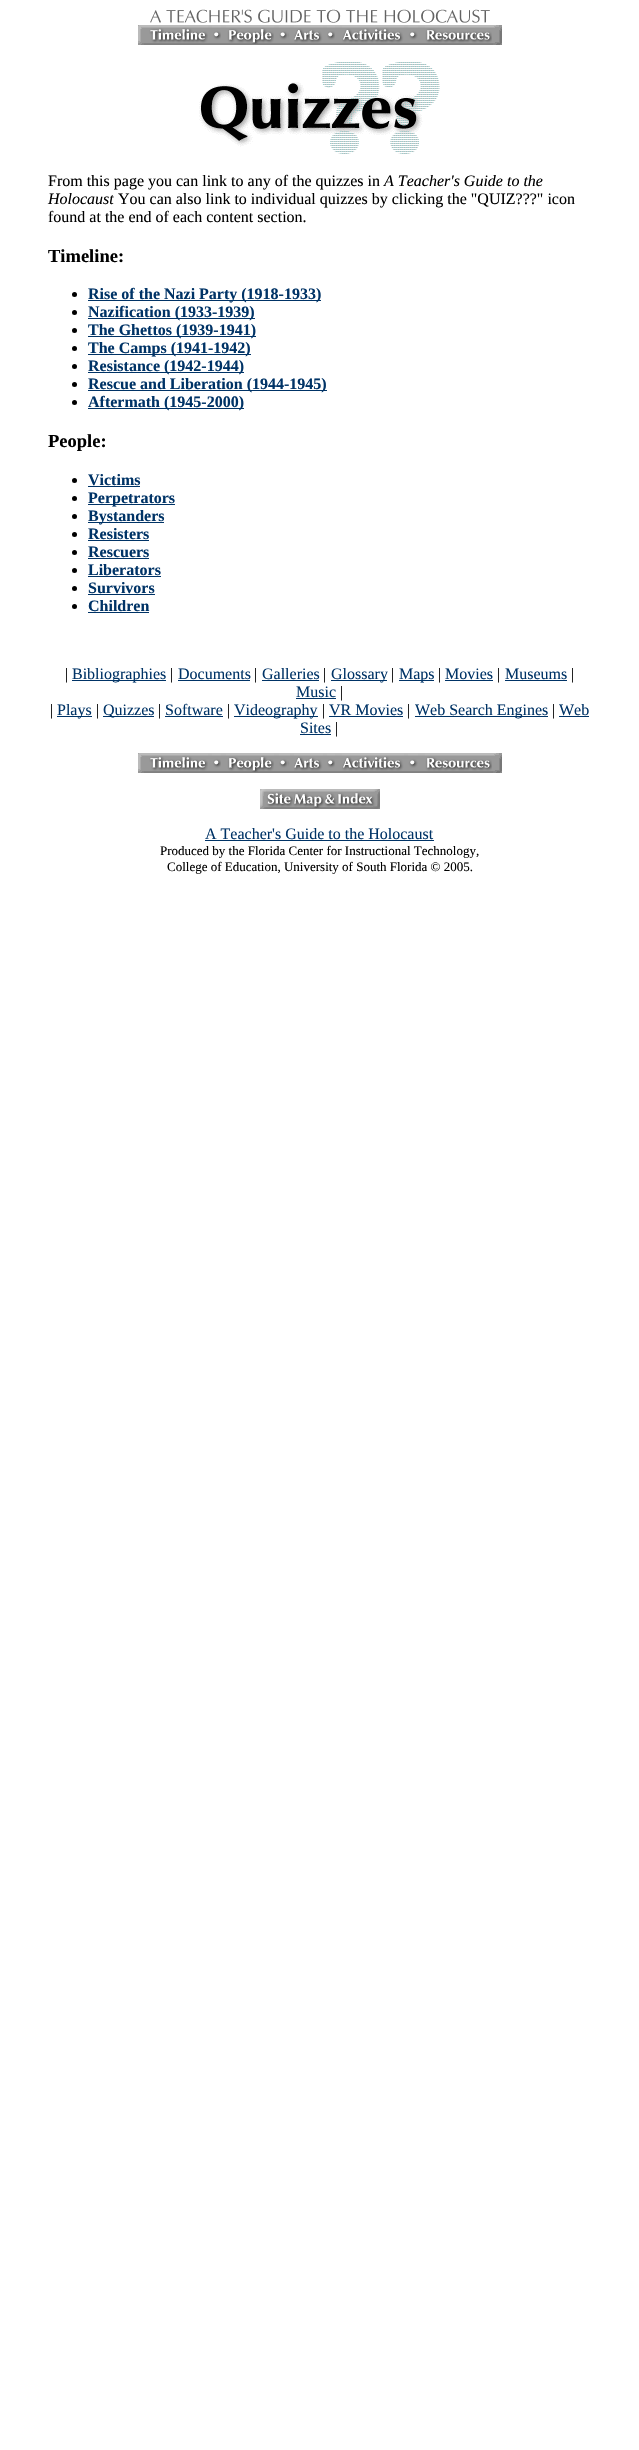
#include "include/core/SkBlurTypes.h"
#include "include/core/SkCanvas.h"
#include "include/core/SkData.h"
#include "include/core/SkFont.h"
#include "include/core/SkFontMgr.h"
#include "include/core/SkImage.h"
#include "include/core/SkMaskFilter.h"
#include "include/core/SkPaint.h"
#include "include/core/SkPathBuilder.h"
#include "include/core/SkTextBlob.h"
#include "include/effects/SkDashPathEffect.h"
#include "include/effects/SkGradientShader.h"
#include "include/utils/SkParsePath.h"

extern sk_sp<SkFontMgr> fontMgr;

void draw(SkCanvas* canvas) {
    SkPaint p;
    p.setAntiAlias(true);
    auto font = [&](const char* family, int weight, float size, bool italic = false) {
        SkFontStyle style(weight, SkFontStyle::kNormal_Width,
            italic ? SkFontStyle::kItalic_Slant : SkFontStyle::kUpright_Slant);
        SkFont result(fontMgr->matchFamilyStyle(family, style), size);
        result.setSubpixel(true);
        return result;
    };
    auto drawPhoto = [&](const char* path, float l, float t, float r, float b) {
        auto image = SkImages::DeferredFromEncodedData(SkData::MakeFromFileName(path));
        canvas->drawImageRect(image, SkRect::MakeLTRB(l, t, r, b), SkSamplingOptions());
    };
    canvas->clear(0xFFFFFFFF);
    drawPhoto("media/1.png", 150, 9, 490, 23);
    drawPhoto("media/2.png", 138, 25, 502, 45);
    drawPhoto("media/3.png", 199, 62, 440, 154);
    auto font1 = font("Liberation Serif", 400, 16);
    p.setColor(0xFF000000);
    canvas->drawString("From this page you can link to any of the quizzes in", 48, 186, font1, p);
    auto font2 = font("Liberation Serif", 400, 16, true);
    canvas->drawString("A Teacher's Guide to the", 384, 186, font2, p);
    canvas->drawString("Holocaust", 48, 204, font2, p);
    canvas->drawString("You can also link to individual quizzes by clicking the \"QUIZ?\077?\" icon", 118, 204, font1, p);
    canvas->drawString("found at the end of each content section.", 48, 222, font1, p);
    auto font3 = font("Liberation Serif", 700, 18.5f);
    canvas->drawString("Timeline:", 48, 262, font3, p);
    canvas->drawCircle(74.5f, 294.5f, 2.5f, p);
    p.setColor(0xFF003366);
    canvas->drawRect(SkRect::MakeLTRB(88, 300, 321, 301), p);
    auto font4 = font("Liberation Serif", 700, 16);
    canvas->drawString("Rise of the Nazi Party (1918-1933)", 88, 299, font4, p);
    p.setColor(0xFF000000);
    canvas->drawCircle(74.5f, 312.5f, 2.5f, p);
    p.setColor(0xFF003366);
    canvas->drawRect(SkRect::MakeLTRB(88, 318, 255, 319), p);
    canvas->drawString("Nazification (1933-1939)", 88, 317, font4, p);
    p.setColor(0xFF000000);
    canvas->drawCircle(74.5f, 330.5f, 2.5f, p);
    p.setColor(0xFF003366);
    canvas->drawRect(SkRect::MakeLTRB(88, 336, 256, 337), p);
    canvas->drawString("The Ghettos (1939-1941)", 88, 335, font4, p);
    p.setColor(0xFF000000);
    canvas->drawCircle(74.5f, 348.5f, 2.5f, p);
    p.setColor(0xFF003366);
    canvas->drawRect(SkRect::MakeLTRB(88, 354, 251, 355), p);
    canvas->drawString("The Camps (1941-1942)", 88, 353, font4, p);
    p.setColor(0xFF000000);
    canvas->drawCircle(74.5f, 366.5f, 2.5f, p);
    p.setColor(0xFF003366);
    canvas->drawRect(SkRect::MakeLTRB(88, 372, 244, 373), p);
    canvas->drawString("Resistance (1942-1944)", 88, 371, font4, p);
    p.setColor(0xFF000000);
    canvas->drawCircle(74.5f, 384.5f, 2.5f, p);
    p.setColor(0xFF003366);
    canvas->drawRect(SkRect::MakeLTRB(88, 390, 327, 391), p);
    canvas->drawString("Rescue and Liberation (1944-1945)", 88, 389, font4, p);
    p.setColor(0xFF000000);
    canvas->drawCircle(74.5f, 402.5f, 2.5f, p);
    p.setColor(0xFF003366);
    canvas->drawRect(SkRect::MakeLTRB(88, 408, 244, 409), p);
    canvas->drawString("Aftermath (1945-2000)", 88, 407, font4, p);
    p.setColor(0xFF000000);
    canvas->drawString("People:", 48, 447, font3, p);
    canvas->drawCircle(74.5f, 480.5f, 2.5f, p);
    p.setColor(0xFF003366);
    canvas->drawString("Victims", 88, 485, font4, p);
    canvas->drawRect(SkRect::MakeLTRB(88, 486, 140, 487), p);
    p.setColor(0xFF000000);
    canvas->drawCircle(74.5f, 498.5f, 2.5f, p);
    p.setColor(0xFF003366);
    canvas->drawRect(SkRect::MakeLTRB(88, 504, 175, 505), p);
    canvas->drawString("Perpetrators", 88, 503, font4, p);
    p.setColor(0xFF000000);
    canvas->drawCircle(74.5f, 516.5f, 2.5f, p);
    p.setColor(0xFF003366);
    canvas->drawRect(SkRect::MakeLTRB(88, 522, 164, 523), p);
    canvas->drawString("Bystanders", 88, 521, font4, p);
    p.setColor(0xFF000000);
    canvas->drawCircle(74.5f, 534.5f, 2.5f, p);
    p.setColor(0xFF003366);
    canvas->drawString("Resisters", 88, 539, font4, p);
    canvas->drawRect(SkRect::MakeLTRB(88, 540, 149, 541), p);
    p.setColor(0xFF000000);
    canvas->drawCircle(74.5f, 552.5f, 2.5f, p);
    p.setColor(0xFF003366);
    canvas->drawString("Rescuers", 88, 557, font4, p);
    canvas->drawRect(SkRect::MakeLTRB(88, 558, 149, 559), p);
    p.setColor(0xFF000000);
    canvas->drawCircle(74.5f, 570.5f, 2.5f, p);
    p.setColor(0xFF003366);
    canvas->drawString("Liberators", 88, 575, font4, p);
    canvas->drawRect(SkRect::MakeLTRB(88, 576, 161, 577), p);
    p.setColor(0xFF000000);
    canvas->drawCircle(74.5f, 588.5f, 2.5f, p);
    p.setColor(0xFF003366);
    canvas->drawString("Survivors", 88, 593, font4, p);
    canvas->drawRect(SkRect::MakeLTRB(88, 594, 155, 595), p);
    p.setColor(0xFF000000);
    canvas->drawCircle(74.5f, 606.5f, 2.5f, p);
    p.setColor(0xFF003366);
    canvas->drawString("Children", 88, 611, font4, p);
    canvas->drawRect(SkRect::MakeLTRB(88, 612, 149, 613), p);
    p.setColor(0xFF000000);
    canvas->drawString("|", 65, 679, font1, p);
    p.setColor(0xFF003366);
    canvas->drawRect(SkRect::MakeLTRB(72, 680, 166, 681), p);
    canvas->drawString("Bibliographies", 72, 679, font1, p);
    p.setColor(0xFF000000);
    canvas->drawString("|", 170, 679, font1, p);
    p.setColor(0xFF003366);
    canvas->drawString("Documents", 178, 679, font1, p);
    canvas->drawRect(SkRect::MakeLTRB(178, 680, 250, 681), p);
    p.setColor(0xFF000000);
    canvas->drawString("|", 254, 679, font1, p);
    p.setColor(0xFF003366);
    canvas->drawString("Galleries", 262, 679, font1, p);
    canvas->drawRect(SkRect::MakeLTRB(262, 680, 319, 681), p);
    p.setColor(0xFF000000);
    canvas->drawString("|", 323, 679, font1, p);
    p.setColor(0xFF003366);
    canvas->drawRect(SkRect::MakeLTRB(331, 680, 387, 681), p);
    canvas->drawString("Glossary", 331, 679, font1, p);
    p.setColor(0xFF000000);
    canvas->drawString("|", 391, 679, font1, p);
    p.setColor(0xFF003366);
    canvas->drawRect(SkRect::MakeLTRB(399, 680, 434, 681), p);
    canvas->drawString("Maps", 399, 679, font1, p);
    p.setColor(0xFF000000);
    canvas->drawString("|", 438, 679, font1, p);
    p.setColor(0xFF003366);
    canvas->drawString("Movies", 445, 679, font1, p);
    canvas->drawRect(SkRect::MakeLTRB(445, 680, 493, 681), p);
    p.setColor(0xFF000000);
    canvas->drawString("|", 497, 679, font1, p);
    p.setColor(0xFF003366);
    canvas->drawString("Museums", 505, 679, font1, p);
    canvas->drawRect(SkRect::MakeLTRB(505, 680, 567, 681), p);
    p.setColor(0xFF000000);
    canvas->drawString("|", 571, 679, font1, p);
    p.setColor(0xFF003366);
    canvas->drawString("Music", 296, 697, font1, p);
    canvas->drawRect(SkRect::MakeLTRB(296, 698, 336, 699), p);
    p.setColor(0xFF000000);
    canvas->drawString("|", 340, 697, font1, p);
    canvas->drawString("|", 50, 715, font1, p);
    p.setColor(0xFF003366);
    canvas->drawRect(SkRect::MakeLTRB(57, 716, 92, 717), p);
    canvas->drawString("Plays", 57, 715, font1, p);
    p.setColor(0xFF000000);
    canvas->drawString("|", 96, 715, font1, p);
    p.setColor(0xFF003366);
    canvas->drawRect(SkRect::MakeLTRB(103, 716, 154, 717), p);
    canvas->drawString("Quizzes", 103, 715, font1, p);
    p.setColor(0xFF000000);
    canvas->drawString("|", 158, 715, font1, p);
    p.setColor(0xFF003366);
    canvas->drawString("Software", 165, 715, font1, p);
    canvas->drawRect(SkRect::MakeLTRB(165, 716, 223, 717), p);
    p.setColor(0xFF000000);
    canvas->drawString("|", 227, 715, font1, p);
    p.setColor(0xFF003366);
    canvas->drawRect(SkRect::MakeLTRB(234, 716, 318, 717), p);
    canvas->drawString("Videography", 234, 715, font1, p);
    p.setColor(0xFF000000);
    canvas->drawString("|", 322, 715, font1, p);
    p.setColor(0xFF003366);
    canvas->drawString("VR Movies", 329, 715, font1, p);
    canvas->drawRect(SkRect::MakeLTRB(329, 716, 403, 717), p);
    p.setColor(0xFF000000);
    canvas->drawString("|", 407, 715, font1, p);
    p.setColor(0xFF003366);
    canvas->drawRect(SkRect::MakeLTRB(415, 716, 548, 717), p);
    canvas->drawString("Web Search Engines", 415, 715, font1, p);
    p.setColor(0xFF000000);
    canvas->drawString("|", 552, 715, font1, p);
    p.setColor(0xFF003366);
    canvas->drawString("Web", 559, 715, font1, p);
    canvas->drawRect(SkRect::MakeLTRB(559, 716, 589, 717), p);
    canvas->drawString("Sites", 300, 733, font1, p);
    canvas->drawRect(SkRect::MakeLTRB(300, 734, 331, 735), p);
    p.setColor(0xFF000000);
    canvas->drawString("|", 335, 733, font1, p);
    drawPhoto("media/2.png", 138, 753, 502, 773);
    drawPhoto("media/4.png", 260, 789, 380, 809);
    p.setColor(0xFF003366);
    canvas->drawString("A Teacher's Guide to the Holocaust", 205, 839, font1, p);
    canvas->drawRect(SkRect::MakeLTRB(205, 840, 434, 841), p);
    auto font5 = font("Liberation Serif", 400, 13);
    p.setColor(0xFF000000);
    canvas->drawString("Produced by the Florida Center for Instructional Technology,", 160, 855, font5, p);
    canvas->drawString("College of Education, University of South Florida © 2005.", 167, 871, font5, p);
}
